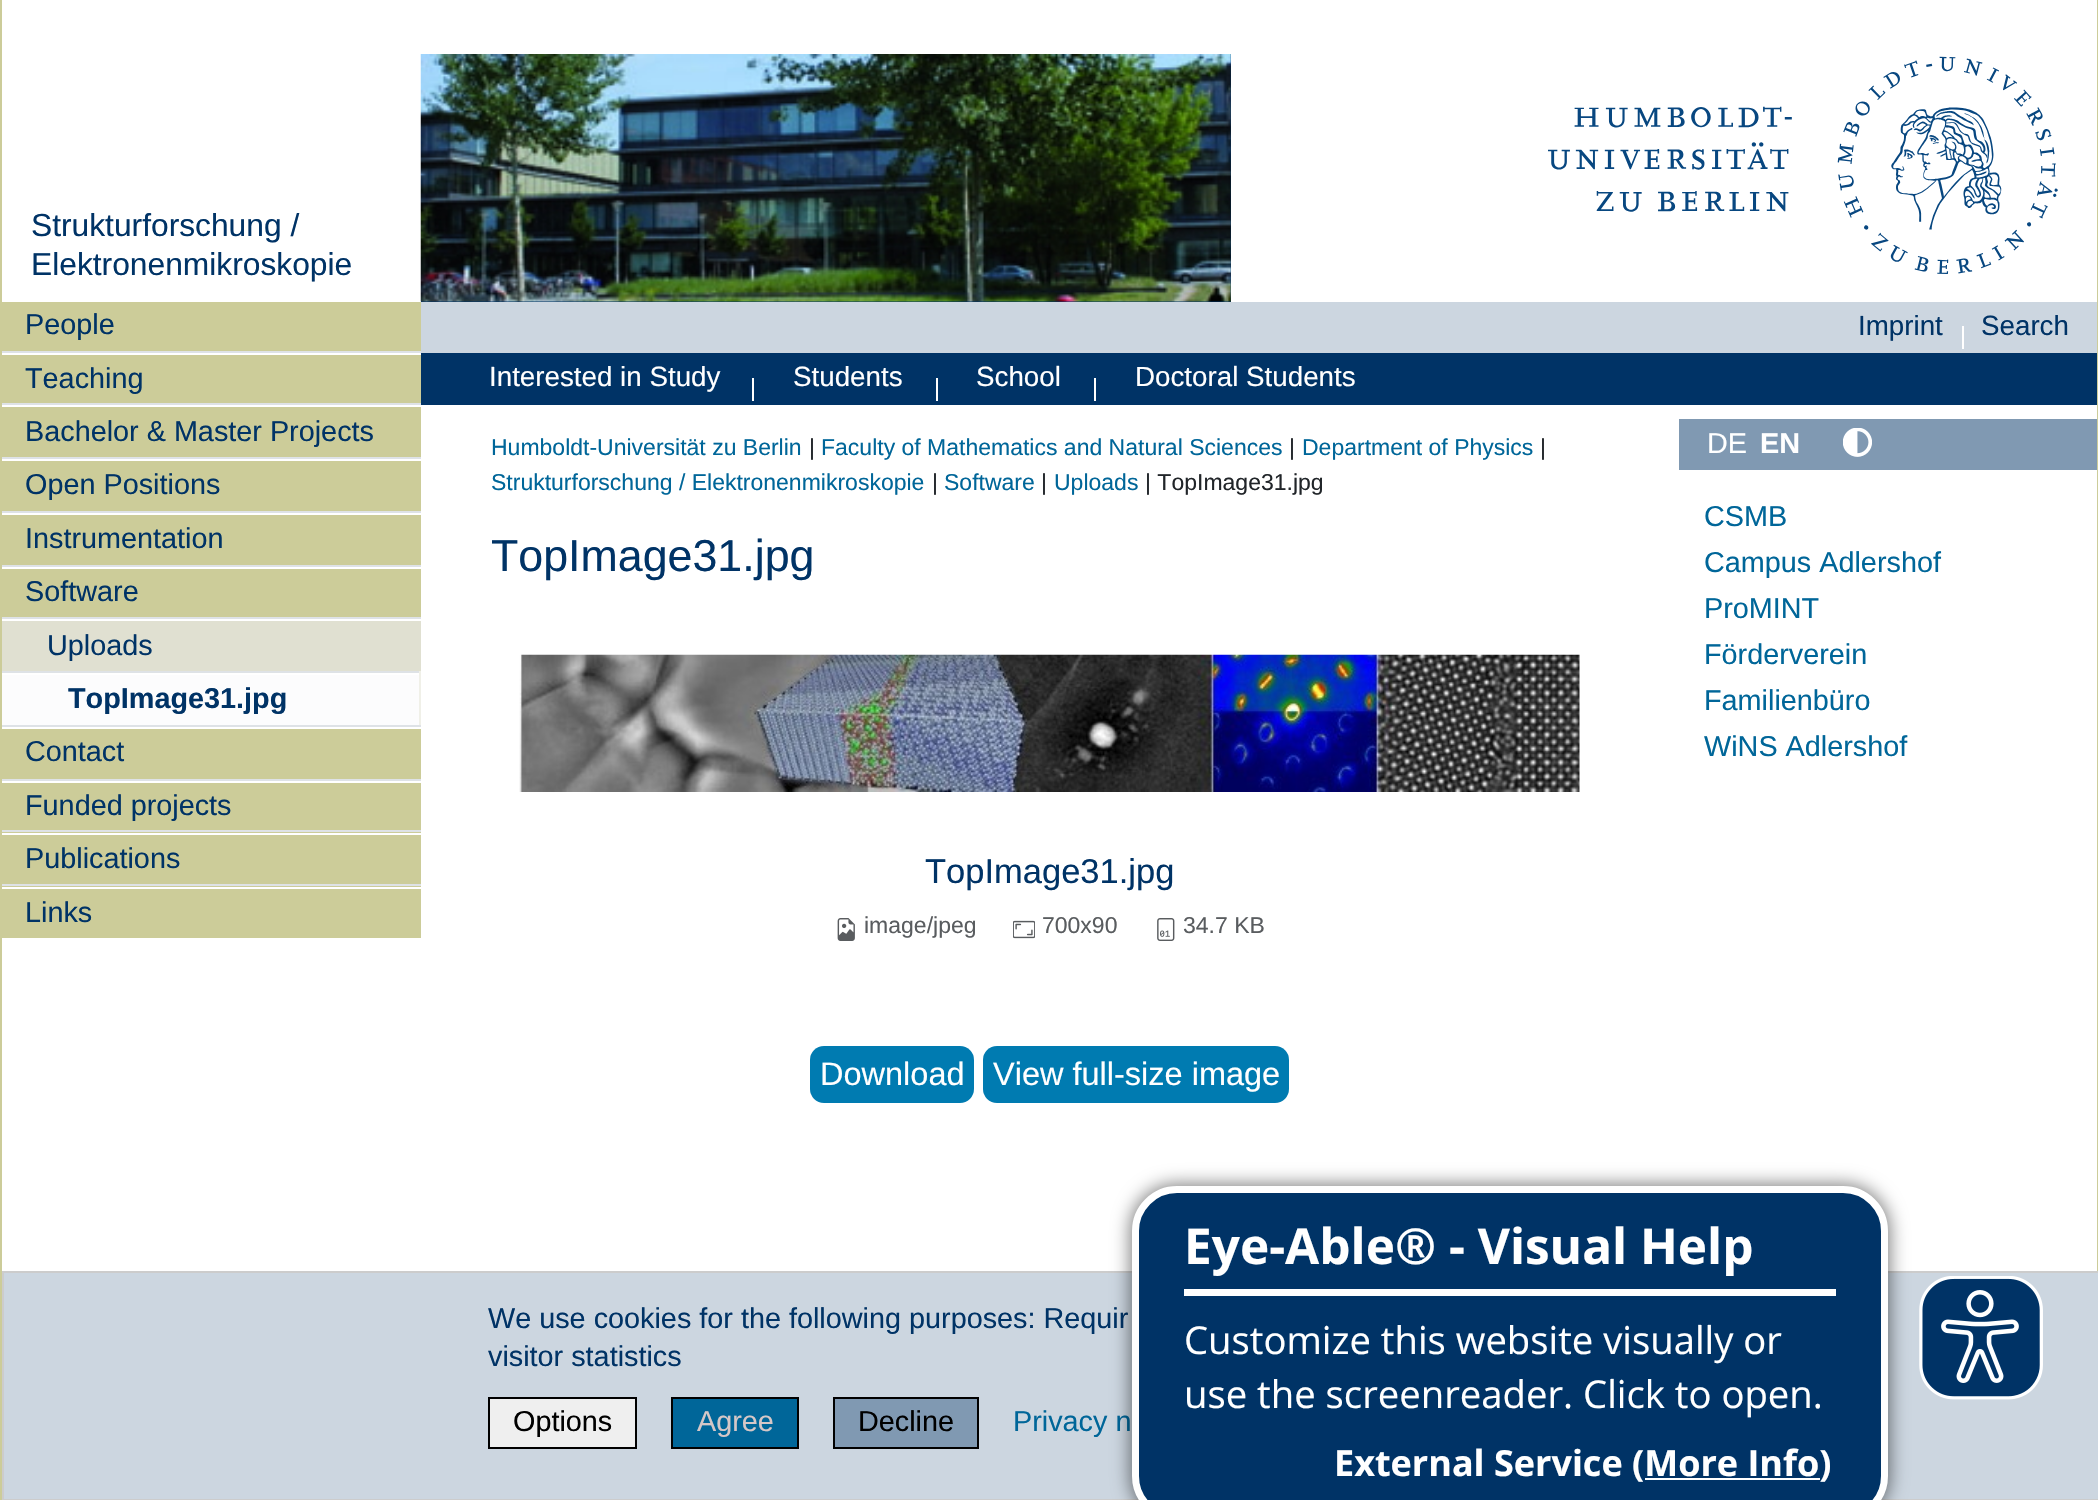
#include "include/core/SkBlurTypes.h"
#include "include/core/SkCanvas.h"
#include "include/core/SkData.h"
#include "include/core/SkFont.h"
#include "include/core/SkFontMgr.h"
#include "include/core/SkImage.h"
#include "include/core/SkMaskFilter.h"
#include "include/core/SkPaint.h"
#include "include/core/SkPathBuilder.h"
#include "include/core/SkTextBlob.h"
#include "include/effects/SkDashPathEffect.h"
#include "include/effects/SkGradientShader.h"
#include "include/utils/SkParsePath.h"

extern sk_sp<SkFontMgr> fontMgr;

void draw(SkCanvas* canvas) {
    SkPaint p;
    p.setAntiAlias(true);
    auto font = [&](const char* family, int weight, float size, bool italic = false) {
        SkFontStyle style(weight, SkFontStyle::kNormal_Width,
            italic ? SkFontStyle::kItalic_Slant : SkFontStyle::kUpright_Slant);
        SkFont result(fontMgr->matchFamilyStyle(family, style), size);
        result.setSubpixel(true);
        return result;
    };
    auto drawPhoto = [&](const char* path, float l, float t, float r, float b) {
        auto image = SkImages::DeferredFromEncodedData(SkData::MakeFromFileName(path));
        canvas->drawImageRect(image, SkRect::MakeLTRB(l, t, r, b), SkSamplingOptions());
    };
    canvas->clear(0xFFFFFFFF);
    p.setColor(0xFF003366);
    canvas->drawRect(SkRect::MakeLTRB(421, 54, 1231, 302), p);
    drawPhoto("media/1.png", 420, 54, 1231, 302);
    drawPhoto("media/2.png", 1548, 56, 2058, 274);
    p.setColor(0xFFCCCC99);
    canvas->drawRect(SkRect::MakeLTRB(2097, 0, 2098, 1271), p);
    canvas->drawRect(SkRect::MakeLTRB(0, 0, 2, 1500), p);
    auto font1 = font("Liberation Sans", 400, 31.75f);
    p.setColor(0xFF003366);
    canvas->drawString("Strukturforschung /", 31, 236, font1, p);
    canvas->drawString("Elektronenmikroskopie", 31, 275, font1, p);
    p.setColor(0xFFCCCC99);
    canvas->drawRect(SkRect::MakeLTRB(2, 302, 421, 351), p);
    auto font2 = font("Liberation Sans", 400, 28.8f);
    p.setColor(0xFF003366);
    canvas->drawString("People", 25, 334, font2, p);
    p.setColor(0xFFCCCC99);
    canvas->drawRect(SkRect::MakeLTRB(2, 355, 421, 403), p);
    p.setColor(0xFFDEE2E6);
    canvas->drawRect(SkRect::MakeLTRB(2, 351, 421, 353), p);
    p.setColor(0xFF003366);
    canvas->drawString("Teaching", 25, 388, font2, p);
    p.setColor(0xFFCCCC99);
    canvas->drawRect(SkRect::MakeLTRB(2, 407, 421, 457), p);
    p.setColor(0xFFDEE2E6);
    canvas->drawRect(SkRect::MakeLTRB(2, 403, 421, 405), p);
    p.setColor(0xFF003366);
    canvas->drawString("Bachelor & Master Projects", 25, 441, font2, p);
    p.setColor(0xFFCCCC99);
    canvas->drawRect(SkRect::MakeLTRB(2, 461, 421, 511), p);
    p.setColor(0xFFDEE2E6);
    canvas->drawRect(SkRect::MakeLTRB(2, 457, 421, 459), p);
    p.setColor(0xFF003366);
    canvas->drawString("Open Positions", 25, 494, font2, p);
    p.setColor(0xFFCCCC99);
    canvas->drawRect(SkRect::MakeLTRB(2, 515, 421, 565), p);
    p.setColor(0xFFDEE2E6);
    canvas->drawRect(SkRect::MakeLTRB(2, 511, 421, 513), p);
    p.setColor(0xFF003366);
    canvas->drawString("Instrumentation", 25, 548, font2, p);
    p.setColor(0xFFCCCC99);
    canvas->drawRect(SkRect::MakeLTRB(2, 569, 421, 617), p);
    p.setColor(0xFFDEE2E6);
    canvas->drawRect(SkRect::MakeLTRB(2, 565, 421, 567), p);
    p.setColor(0xFF003366);
    canvas->drawString("Software", 25, 601, font2, p);
    p.setColor(0xFFE0E0D1);
    canvas->drawRect(SkRect::MakeLTRB(2, 621, 421, 671), p);
    p.setColor(0xFFDEE2E6);
    canvas->drawRect(SkRect::MakeLTRB(2, 617, 421, 619), p);
    p.setColor(0xFF003366);
    canvas->drawString("Uploads", 47, 655, font2, p);
    {
        const struct { float l, t, r, b; SkColor color; } items[] = {
            {2, 671, 421, 673, 0xFFDEE2E6},
            {419, 671, 421, 725, 0xFFF0F0E8},
            {2, 675, 419, 725, 0xFFFCFCFD},
        };
        for (auto [l, t, r, b, color] : items) {
            p.setColor(color);
            canvas->drawRect(SkRect::MakeLTRB(l, t, r, b), p);
        }
    }
    auto font3 = font("Liberation Sans", 700, 28.8f);
    p.setColor(0xFF003366);
    canvas->drawString("TopImage31.jpg", 68, 708, font3, p);
    p.setColor(0xFFCCCC99);
    canvas->drawRect(SkRect::MakeLTRB(2, 729, 421, 779), p);
    p.setColor(0xFFDEE2E6);
    canvas->drawRect(SkRect::MakeLTRB(2, 725, 421, 727), p);
    p.setColor(0xFF003366);
    canvas->drawString("Contact", 25, 761, font2, p);
    p.setColor(0xFFCCCC99);
    canvas->drawRect(SkRect::MakeLTRB(2, 783, 421, 830), p);
    p.setColor(0xFFDEE2E6);
    canvas->drawRect(SkRect::MakeLTRB(2, 779, 421, 781), p);
    p.setColor(0xFF003366);
    canvas->drawString("Funded projects", 25, 815, font2, p);
    {
        const struct { float l, t, r, b; SkColor color; } items[] = {
            {2, 832, 421, 884, 0xFFCCCC99},
            {2, 830, 421, 832, 0xFFDEE2E6},
            {2, 833, 421, 835, 0xFFFFFFFF},
        };
        for (auto [l, t, r, b, color] : items) {
            p.setColor(color);
            canvas->drawRect(SkRect::MakeLTRB(l, t, r, b), p);
        }
    }
    p.setColor(0xFF003366);
    canvas->drawString("Publications", 25, 868, font2, p);
    {
        const struct { float l, t, r, b; SkColor color; } items[] = {
            {2, 886, 421, 938, 0xFFCCCC99},
            {2, 884, 421, 886, 0xFFDEE2E6},
            {2, 887, 421, 889, 0xFFFFFFFF},
        };
        for (auto [l, t, r, b, color] : items) {
            p.setColor(color);
            canvas->drawRect(SkRect::MakeLTRB(l, t, r, b), p);
        }
    }
    p.setColor(0xFF003366);
    canvas->drawString("Links", 25, 922, font2, p);
    p.setColor(0xFFCCD6E0);
    canvas->drawRect(SkRect::MakeLTRB(421, 302, 2097, 353), p);
    auto font4 = font("Liberation Sans", 400, 27.75f);
    p.setColor(0xFF003366);
    canvas->drawString("Imprint", 1858, 335, font4, p);
    p.setColor(0xFFFFFFFF);
    canvas->drawRect(SkRect::MakeLTRB(1962, 326, 1964, 349), p);
    p.setColor(0xFF003366);
    canvas->drawString("Search", 1981, 335, font4, p);
    canvas->drawRect(SkRect::MakeLTRB(421, 353, 2097, 405), p);
    p.setColor(0xFFFFFFFF);
    canvas->drawString("Interested in Study", 489, 386, font4, p);
    canvas->drawRect(SkRect::MakeLTRB(752, 378, 754, 401), p);
    canvas->drawString("Students", 793, 386, font4, p);
    canvas->drawRect(SkRect::MakeLTRB(936, 378, 938, 401), p);
    canvas->drawString("School", 976, 386, font4, p);
    canvas->drawRect(SkRect::MakeLTRB(1094, 378, 1096, 401), p);
    canvas->drawString("Doctoral Students", 1135, 386, font4, p);
    auto font5 = font("Liberation Sans", 400, 23);
    p.setColor(0xFF006699);
    canvas->drawString("Humboldt-Universität zu Berlin", 491, 455, font5, p);
    p.setColor(0xFF212529);
    canvas->drawString("|", 809, 455, font5, p);
    p.setColor(0xFF006699);
    canvas->drawString("Faculty of Mathematics and Natural Sciences", 821, 455, font5, p);
    p.setColor(0xFF212529);
    canvas->drawString("|", 1289, 455, font5, p);
    p.setColor(0xFF006699);
    canvas->drawString("Department of Physics", 1302, 455, font5, p);
    p.setColor(0xFF212529);
    canvas->drawString("|", 1540, 455, font5, p);
    p.setColor(0xFF006699);
    canvas->drawString("Strukturforschung / Elektronenmikroskopie", 491, 490, font5, p);
    p.setColor(0xFF212529);
    canvas->drawString("|", 932, 490, font5, p);
    p.setColor(0xFF006699);
    canvas->drawString("Software", 944, 490, font5, p);
    p.setColor(0xFF212529);
    canvas->drawString("|", 1041, 490, font5, p);
    p.setColor(0xFF006699);
    canvas->drawString("Uploads", 1054, 490, font5, p);
    p.setColor(0xFF212529);
    canvas->drawString("| TopImage31.jpg", 1145, 490, font5, p);
    auto font6 = font("Liberation Sans", 400, 44.75f);
    p.setColor(0xFF003366);
    canvas->drawString("TopImage31.jpg", 491, 571, font6, p);
    drawPhoto("media/3.png", 519, 654, 1580, 792);
    auto font7 = font("Liberation Sans", 400, 34.5f);
    canvas->drawString("TopImage31.jpg", 925, 883, font7, p);
    drawPhoto("media/4.png", 837, 918, 855, 941);
    p.setColor(0xFF595C5F);
    canvas->drawString("image/jpeg", 864, 933, font5, p);
    drawPhoto("media/5.png", 1013, 920, 1035, 939);
    canvas->drawString("700x90", 1042, 933, font5, p);
    drawPhoto("media/6.png", 1157, 918, 1175, 941);
    canvas->drawString("34.7 KB", 1183, 933, font5, p);
    p.setColor(0xFF007BB1);
    canvas->drawRoundRect(SkRect::MakeLTRB(810, 1046, 974, 1103), 14, 14, p);
    auto font8 = font("Liberation Sans", 400, 32.5f);
    p.setColor(0xFFFFFFFF);
    canvas->drawString("Download", 820, 1085, font8, p);
    p.setColor(0xFF007BB1);
    canvas->drawRoundRect(SkRect::MakeLTRB(983, 1046, 1289, 1103), 14, 14, p);
    p.setColor(0xFFFFFFFF);
    canvas->drawString("View full-size image", 993, 1085, font8, p);
    p.setColor(0xFF8099B2);
    canvas->drawRect(SkRect::MakeLTRB(1679, 419, 2097, 470), p);
    p.setColor(0xFFFFFFFF);
    canvas->drawString("DE", 1707, 453, font2, p);
    canvas->drawString("EN", 1760, 453, font3, p);
    drawPhoto("media/7.png", 1843, 428, 1872, 457);
    p.setColor(0xFF006699);
    {
        const struct { const char* s; float x, y; } items[] = {
            {"CSMB", 1704, 526},
            {"Campus Adlershof", 1704, 572},
            {"ProMINT", 1704, 618},
            {"Förderverein", 1704, 664},
            {"Familienbüro", 1704, 710},
            {"WiNS Adlershof", 1704, 756},
        };
        for (auto [s, x, y] : items) {
            canvas->drawString(s, x, y, font2, p);
        }
    }
    p.setColor(0xFFCCD6E0);
    canvas->drawRect(SkRect::MakeLTRB(3, 1272, 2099, 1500), p);
    p.setStyle(SkPaint::kStroke_Style);
    p.setStrokeWidth(2);
    p.setColor(0xFFCCCCCC);
    canvas->drawRect(SkRect::MakeLTRB(3, 1272, 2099, 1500), p);
    p.setStyle(SkPaint::kFill_Style);
    p.setColor(0xFF003366);
    canvas->drawString("We use cookies for the following purposes: Requir", 488, 1328, font2, p);
    canvas->drawString("visitor statistics", 488, 1366, font2, p);
    p.setColor(0xFFEFEFEF);
    canvas->drawRect(SkRect::MakeLTRB(489, 1398, 636, 1448), p);
    p.setStyle(SkPaint::kStroke_Style);
    p.setColor(0xFF000000);
    canvas->drawRect(SkRect::MakeLTRB(489, 1398, 636, 1448), p);
    p.setStyle(SkPaint::kFill_Style);
    canvas->drawString("Options", 513, 1431, font2, p);
    p.setColor(0xFF006699);
    canvas->drawRect(SkRect::MakeLTRB(672, 1398, 798, 1448), p);
    p.setStyle(SkPaint::kStroke_Style);
    p.setColor(0xFF000000);
    canvas->drawRect(SkRect::MakeLTRB(672, 1398, 798, 1448), p);
    p.setStyle(SkPaint::kFill_Style);
    p.setColor(0xFFD5C7C7);
    canvas->drawString("Agree", 697, 1431, font2, p);
    p.setColor(0xFF8099B2);
    canvas->drawRect(SkRect::MakeLTRB(834, 1398, 978, 1448), p);
    p.setStyle(SkPaint::kStroke_Style);
    p.setColor(0xFF000000);
    canvas->drawRect(SkRect::MakeLTRB(834, 1398, 978, 1448), p);
    p.setStyle(SkPaint::kFill_Style);
    canvas->drawString("Decline", 858, 1431, font2, p);
    p.setColor(0xFF006699);
    canvas->drawString("Privacy n", 1013, 1431, font2, p);
    p.setColor(0x80000000);
    p.setMaskFilter(SkMaskFilter::MakeBlur(kNormal_SkBlurStyle, 9));
    canvas->drawRoundRect(SkRect::MakeLTRB(1130, 1184, 1890, 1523), 47, 47, p);
    p.setMaskFilter(nullptr);
    p.setColor(0xFF003366);
    canvas->drawRoundRect(SkRect::MakeLTRB(1135.5f, 1189.5f, 1884.5f, 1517.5f), 41.5f, 41.5f, p);
    p.setStyle(SkPaint::kStroke_Style);
    p.setStrokeWidth(7);
    p.setColor(0xFFFFFFFF);
    canvas->drawRoundRect(SkRect::MakeLTRB(1135.5f, 1189.5f, 1884.5f, 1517.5f), 41.5f, 41.5f, p);
    p.setStyle(SkPaint::kFill_Style);
    canvas->drawRect(SkRect::MakeLTRB(1184, 1289, 1836, 1296), p);
    auto font9 = font("Open Sans", 700, 49.5f);
    canvas->drawString("Eye-Able® - Visual Help", 1184, 1264, font9, p);
    auto font10 = font("Open Sans", 400, 38.25f);
    canvas->drawString("Customize this website visually or", 1184, 1354, font10, p);
    canvas->drawString("use the screenreader. Click to open.", 1184, 1408, font10, p);
    auto font11 = font("Open Sans", 700, 36);
    canvas->drawString("External Service (More Info)", 1334, 1476, font11, p);
    canvas->drawRect(SkRect::MakeLTRB(1645, 1478, 1820, 1480), p);
    drawPhoto("media/8.png", 1919, 1276, 2043, 1400);
}
